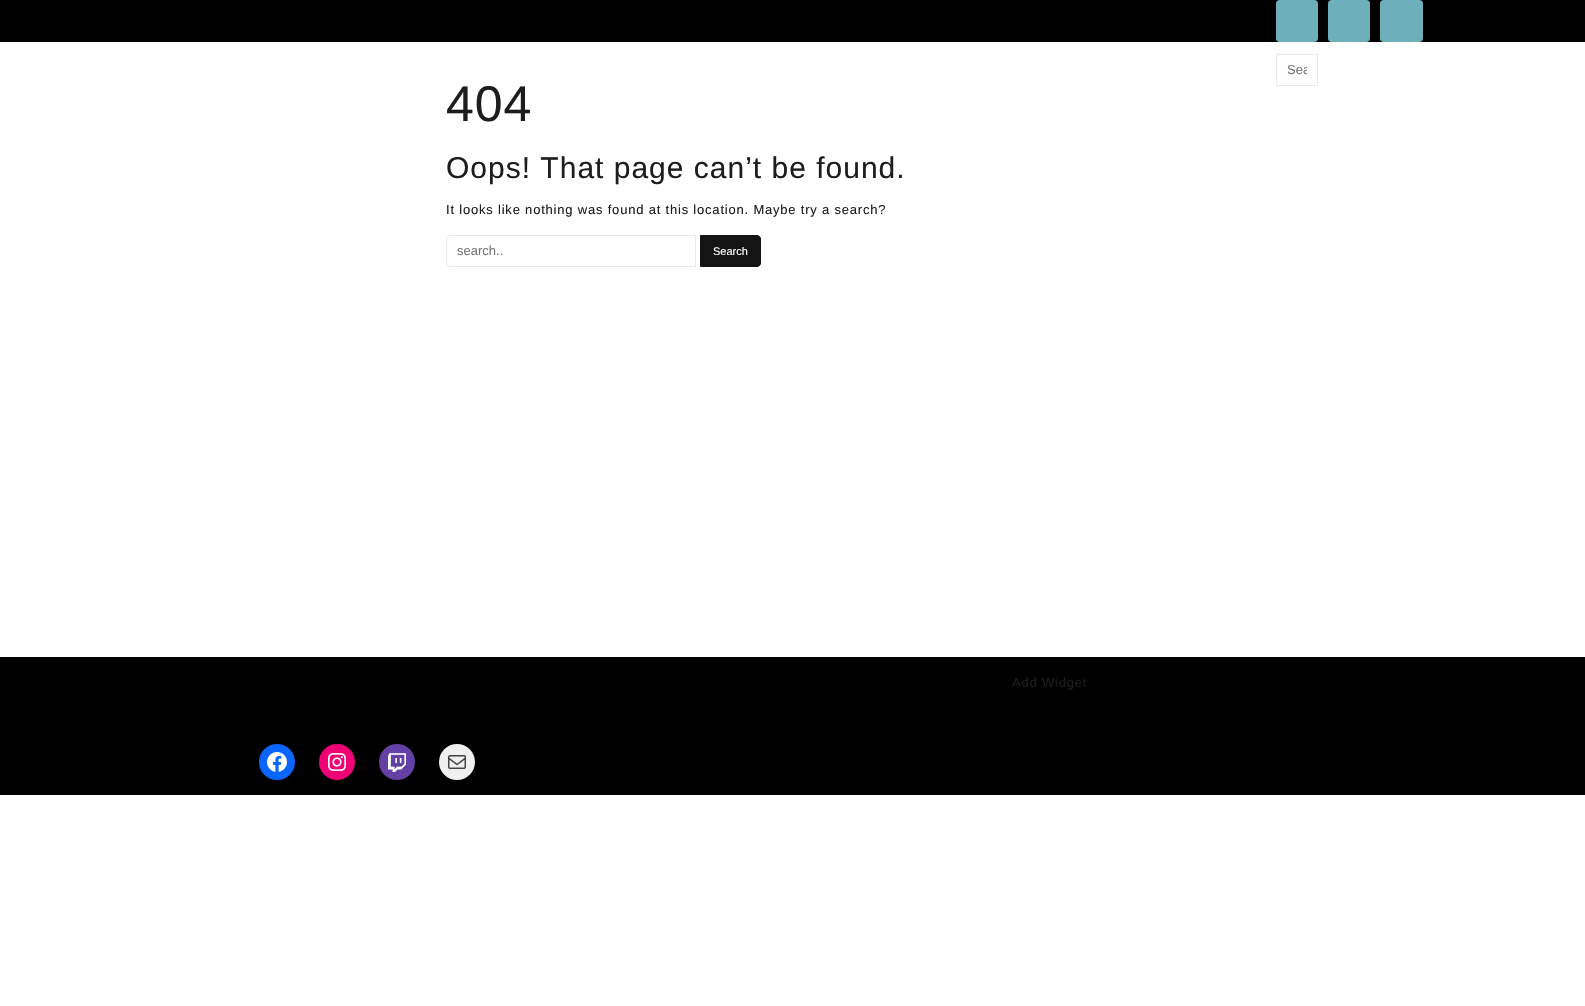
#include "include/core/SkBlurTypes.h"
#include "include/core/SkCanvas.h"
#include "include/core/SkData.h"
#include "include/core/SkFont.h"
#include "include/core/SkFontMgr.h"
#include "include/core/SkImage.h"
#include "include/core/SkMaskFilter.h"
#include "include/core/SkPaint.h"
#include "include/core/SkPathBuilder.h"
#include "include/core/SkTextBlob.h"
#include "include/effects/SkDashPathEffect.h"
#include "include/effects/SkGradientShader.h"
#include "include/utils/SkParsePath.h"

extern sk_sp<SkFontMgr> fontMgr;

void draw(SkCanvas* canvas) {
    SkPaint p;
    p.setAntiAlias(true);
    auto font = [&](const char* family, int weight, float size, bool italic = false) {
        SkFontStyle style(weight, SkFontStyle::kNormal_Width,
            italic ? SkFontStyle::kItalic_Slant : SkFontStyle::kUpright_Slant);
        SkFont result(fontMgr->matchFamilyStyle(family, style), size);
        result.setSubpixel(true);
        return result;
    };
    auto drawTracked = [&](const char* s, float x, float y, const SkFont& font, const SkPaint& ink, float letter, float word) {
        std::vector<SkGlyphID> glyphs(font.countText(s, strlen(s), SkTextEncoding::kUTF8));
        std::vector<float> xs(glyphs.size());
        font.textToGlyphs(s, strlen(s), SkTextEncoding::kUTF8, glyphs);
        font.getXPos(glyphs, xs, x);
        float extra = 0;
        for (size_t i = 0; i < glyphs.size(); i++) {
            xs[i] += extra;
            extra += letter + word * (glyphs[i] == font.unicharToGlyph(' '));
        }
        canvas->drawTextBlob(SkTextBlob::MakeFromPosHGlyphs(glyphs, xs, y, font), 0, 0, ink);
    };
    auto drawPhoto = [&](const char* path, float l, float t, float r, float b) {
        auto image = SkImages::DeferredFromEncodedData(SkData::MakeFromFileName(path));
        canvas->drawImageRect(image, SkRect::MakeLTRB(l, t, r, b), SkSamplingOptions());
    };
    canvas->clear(0xFFFFFFFF);
    p.setColor(0xFF000000);
    canvas->drawRect(SkRect::MakeLTRB(0, 0, 1585, 42), p);
    p.setColor(0xFF6DB0BC);
    canvas->drawRoundRect(SkRect::MakeLTRB(1380, 0, 1423, 42), 4, 4, p);
    canvas->drawRoundRect(SkRect::MakeLTRB(1328, 0, 1370, 42), 4, 4, p);
    canvas->drawRoundRect(SkRect::MakeLTRB(1276, 0, 1318, 42), 4, 4, p);
    p.setStyle(SkPaint::kStroke_Style);
    p.setStrokeWidth(1);
    p.setColor(0xFFEAEAEA);
    canvas->drawRect(SkRect::MakeLTRB(1276.5f, 54.5f, 1317.5f, 85.5f), p);
    canvas->save();
    canvas->clipRect(SkRect::MakeLTRB(1287, 62, 1307, 77));
    auto font1 = font("Liberation Sans", 400, 13);
    p.setStyle(SkPaint::kFill_Style);
    p.setColor(0xFF757575);
    canvas->drawString("Sea", 1287, 74, font1, p);
    canvas->restore();
    auto font2 = font("Liberation Sans", 400, 50);
    p.setColor(0xFF1C1D1E);
    drawTracked("404", 446, 121, font2, p, 1, 0);
    auto font3 = font("Liberation Sans", 400, 30);
    drawTracked("Oops! That page can’t be found.", 446, 178, font3, p, 1, 0);
    drawTracked("It looks like nothing was found at this location. Maybe try a search?", 446, 214, font1, p, 0.8f, 0);
    p.setStyle(SkPaint::kStroke_Style);
    p.setColor(0xFFEAEAEA);
    canvas->drawPath(SkPathBuilder().moveTo(450, 235.5f).lineTo(695.5f, 235.5f).lineTo(695.5f, 266.5f).lineTo(450, 266.5f).cubicTo(448, 266.5f, 446.5f, 265, 446.5f, 263).lineTo(446.5f, 239).cubicTo(446.5f, 237, 448, 235.5f, 450, 235.5f).close().detach(), p);
    p.setStyle(SkPaint::kFill_Style);
    p.setColor(0xFF757575);
    canvas->drawString("search..", 457, 255, font1, p);
    p.setColor(0xFF141415);
    canvas->drawPath(SkPathBuilder().moveTo(700.5f, 235.5f).lineTo(757, 235.5f).cubicTo(759, 235.5f, 760.5f, 237, 760.5f, 239).lineTo(760.5f, 263).cubicTo(760.5f, 265, 759, 266.5f, 757, 266.5f).lineTo(700.5f, 266.5f).close().detach(), p);
    p.setStyle(SkPaint::kStroke_Style);
    canvas->drawPath(SkPathBuilder().moveTo(700.5f, 235.5f).lineTo(757, 235.5f).cubicTo(759, 235.5f, 760.5f, 237, 760.5f, 239).lineTo(760.5f, 263).cubicTo(760.5f, 265, 759, 266.5f, 757, 266.5f).lineTo(700.5f, 266.5f).close().detach(), p);
    auto font4 = font("Liberation Sans", 400, 11);
    p.setStyle(SkPaint::kFill_Style);
    p.setColor(0xFFFFFFFF);
    canvas->drawString("Search", 713, 255, font4, p);
    p.setColor(0xFF000000);
    canvas->drawRect(SkRect::MakeLTRB(0, 657, 1585, 795), p);
    p.setColor(0xFF1C1D1E);
    drawTracked("Add Widget", 1012, 687, font1, p, 0.8f, 0);
    p.setColor(0xFF0866FF);
    canvas->drawCircle(277, 762, 18, p);
    drawPhoto("media/1.png", 267, 752, 287, 772);
    p.setColor(0xFFF00075);
    canvas->drawCircle(337, 762, 18, p);
    drawPhoto("media/2.png", 328, 753, 346, 771);
    p.setColor(0xFF6440A4);
    canvas->drawCircle(397, 762, 18, p);
    drawPhoto("media/3.png", 388, 753, 406, 772);
    p.setColor(0xFFF0F0F0);
    canvas->drawCircle(457, 762, 18, p);
    drawPhoto("media/4.png", 448, 755, 466, 769);
}
